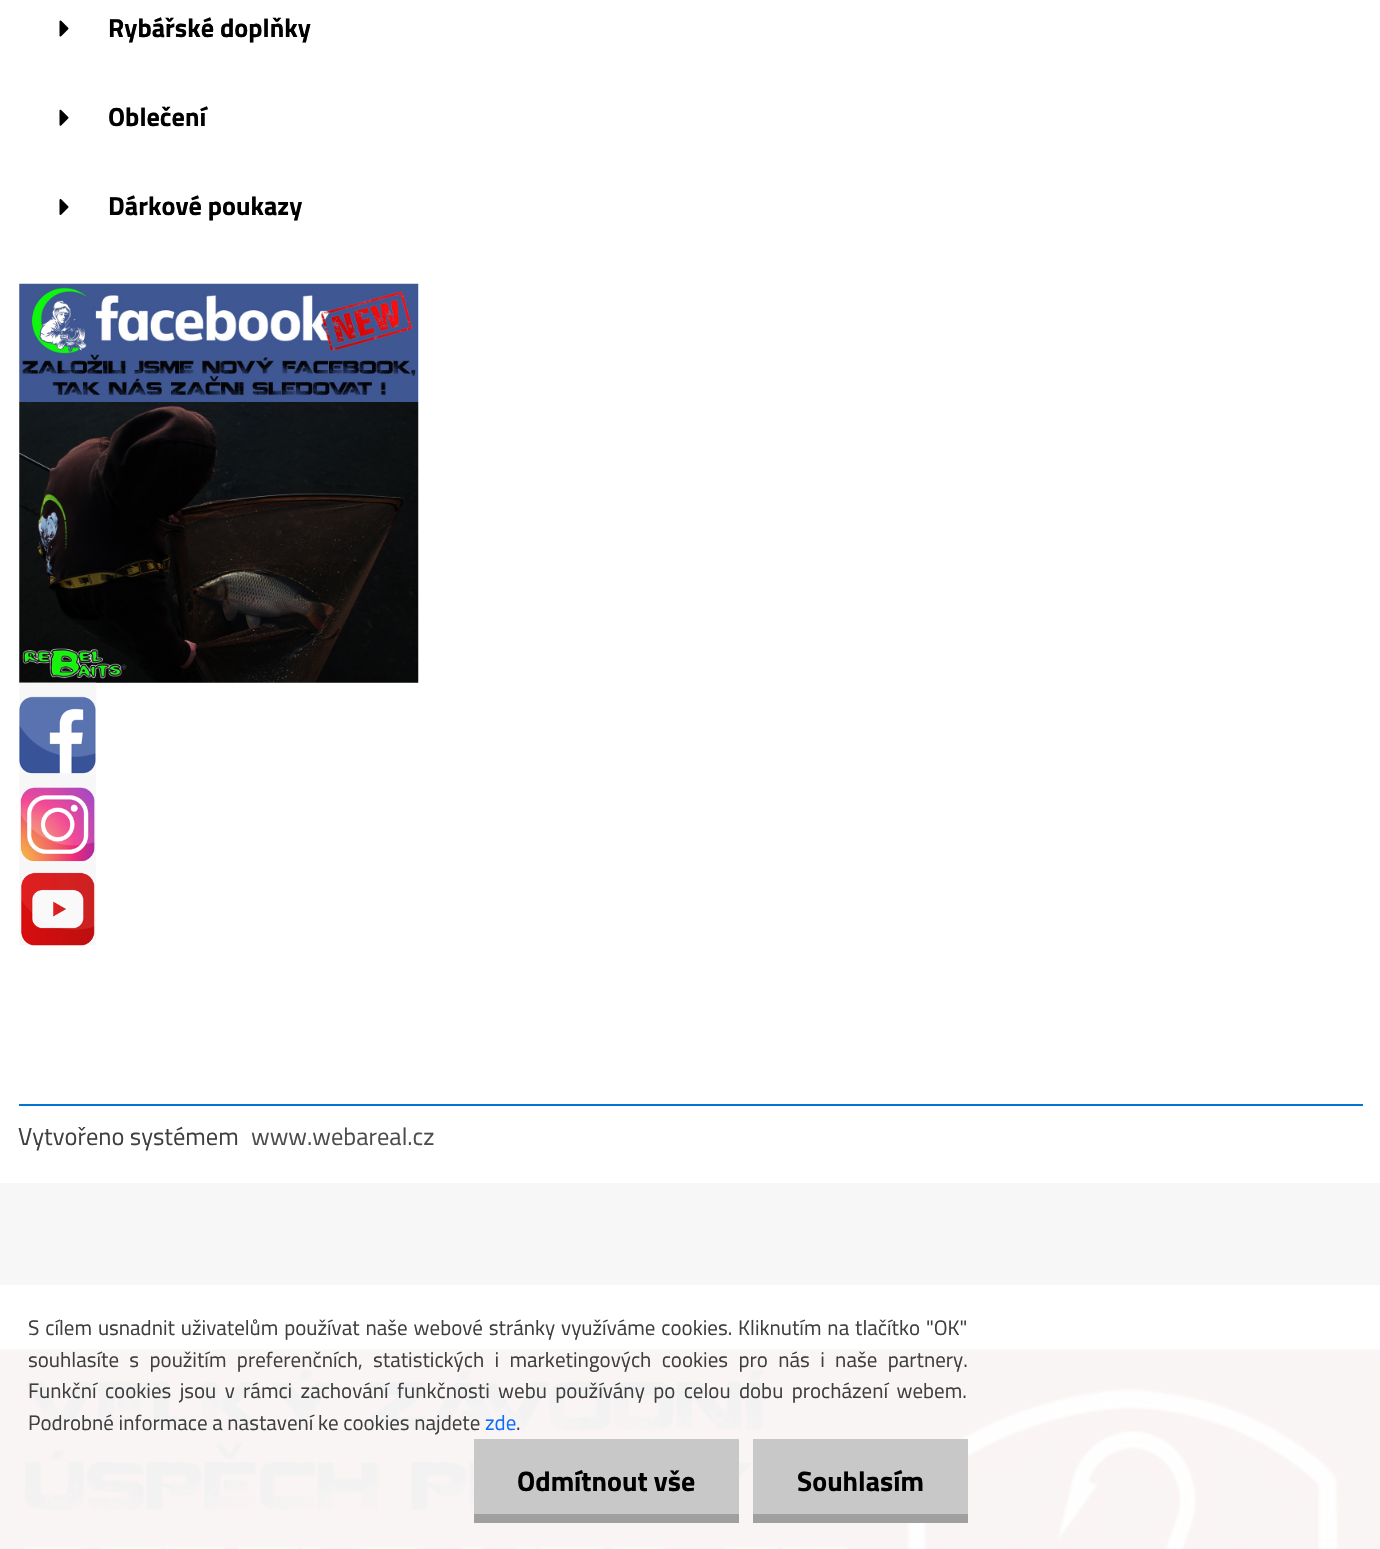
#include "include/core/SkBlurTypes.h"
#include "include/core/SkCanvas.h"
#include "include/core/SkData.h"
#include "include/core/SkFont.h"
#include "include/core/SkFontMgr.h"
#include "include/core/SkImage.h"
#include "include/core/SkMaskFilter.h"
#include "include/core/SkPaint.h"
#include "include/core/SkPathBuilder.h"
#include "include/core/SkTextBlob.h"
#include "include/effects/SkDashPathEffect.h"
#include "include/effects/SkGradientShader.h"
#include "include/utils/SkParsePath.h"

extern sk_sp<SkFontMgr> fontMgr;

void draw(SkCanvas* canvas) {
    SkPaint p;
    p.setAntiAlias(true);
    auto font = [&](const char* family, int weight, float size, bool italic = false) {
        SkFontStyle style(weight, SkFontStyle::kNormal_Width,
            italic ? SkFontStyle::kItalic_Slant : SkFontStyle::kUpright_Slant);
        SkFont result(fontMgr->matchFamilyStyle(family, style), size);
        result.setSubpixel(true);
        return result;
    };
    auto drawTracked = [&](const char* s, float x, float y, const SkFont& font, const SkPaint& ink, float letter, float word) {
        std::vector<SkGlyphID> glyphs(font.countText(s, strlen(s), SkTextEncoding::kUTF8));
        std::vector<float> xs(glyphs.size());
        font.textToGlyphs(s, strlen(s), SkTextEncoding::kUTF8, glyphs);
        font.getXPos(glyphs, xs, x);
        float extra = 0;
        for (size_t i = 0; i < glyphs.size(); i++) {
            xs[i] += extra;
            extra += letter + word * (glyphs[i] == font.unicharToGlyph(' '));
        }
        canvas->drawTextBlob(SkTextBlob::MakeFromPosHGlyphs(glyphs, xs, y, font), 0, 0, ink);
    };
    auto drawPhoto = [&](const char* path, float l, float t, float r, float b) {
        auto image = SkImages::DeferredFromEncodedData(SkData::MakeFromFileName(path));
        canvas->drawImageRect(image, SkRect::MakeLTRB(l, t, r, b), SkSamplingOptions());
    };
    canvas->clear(0xFFF7F7F7);
    p.setColor(0xFFFFFFFF);
    canvas->drawRect(SkRect::MakeLTRB(0, 1285, 1380, 1350), p);
    canvas->drawRect(SkRect::MakeLTRB(0, 0, 1380, 1183), p);
    drawPhoto("media/1.png", 59, 20, 69, 37);
    auto font1 = font("Titillium Web", 700, 26.25f);
    p.setColor(0xFF000000);
    canvas->drawString("Rybářské doplňky", 108, 37, font1, p);
    drawPhoto("media/2.png", 59, 109, 69, 126);
    canvas->drawString("Oblečení", 108, 126, font1, p);
    drawPhoto("media/3.png", 59, 199, 69, 215);
    canvas->drawString("Dárkové poukazy", 108, 215, font1, p);
    drawPhoto("media/4.png", 19, 283, 419, 683);
    drawPhoto("media/5.png", 19, 682, 97, 774);
    drawPhoto("media/6.png", 19, 773, 96, 862);
    drawPhoto("media/7.png", 19, 861, 96, 946);
    p.setColor(0xFF0175D7);
    canvas->drawRect(SkRect::MakeLTRB(19, 1104, 1363, 1106), p);
    auto font2 = font("Titillium Web", 400, 24.5f);
    p.setColor(0xFF3F3F3F);
    canvas->drawString("Vytvořeno systémem", 18, 1145, font2, p);
    p.setColor(0xFF4D4D4D);
    canvas->drawString("www.webareal.cz", 251, 1145, font2, p);
    drawPhoto("media/8.png", 0, 1349, 1380, 1549);
    auto font3 = font("Titillium Web", 400, 21);
    p.setColor(0xFF3F3F3F);
    drawTracked("S cílem usnadnit uživatelům používat naše webové stránky využíváme cookies. Kliknutím na tlačítko \"OK\"", 28, 1335, font3, p, 0, 1.25f);
    drawTracked("souhlasíte s použitím preferenčních, statistických i marketingových cookies pro nás i naše partnery.", 28, 1367, font3, p, 0, 5.75f);
    drawTracked("Funkční cookies jsou v rámci zachování funkčnosti webu používány po celou dobu procházení webem.", 28, 1398, font3, p, 0, 3.75f);
    canvas->drawString("Podrobné informace a nastavení ke cookies najdete", 28, 1430, font3, p);
    p.setColor(0xFF0D6EFD);
    canvas->drawString("zde", 485, 1430, font3, p);
    p.setColor(0xFF3F3F3F);
    canvas->drawString(".", 516, 1430, font3, p);
    p.setColor(0xFFC8C8C8);
    canvas->drawRect(SkRect::MakeLTRB(474, 1439, 739, 1514), p);
    p.setColor(0xFFA0A0A0);
    canvas->drawRect(SkRect::MakeLTRB(474, 1514, 739, 1523), p);
    auto font4 = font("Titillium Web", 700, 28);
    p.setColor(0xFF000000);
    canvas->drawString("Odmítnout vše", 517, 1491, font4, p);
    p.setColor(0xFFC8C8C8);
    canvas->drawRect(SkRect::MakeLTRB(753, 1439, 968, 1514), p);
    p.setColor(0xFFA0A0A0);
    canvas->drawRect(SkRect::MakeLTRB(753, 1514, 968, 1523), p);
    p.setColor(0xFF000000);
    canvas->drawString("Souhlasím", 797, 1491, font4, p);
}
